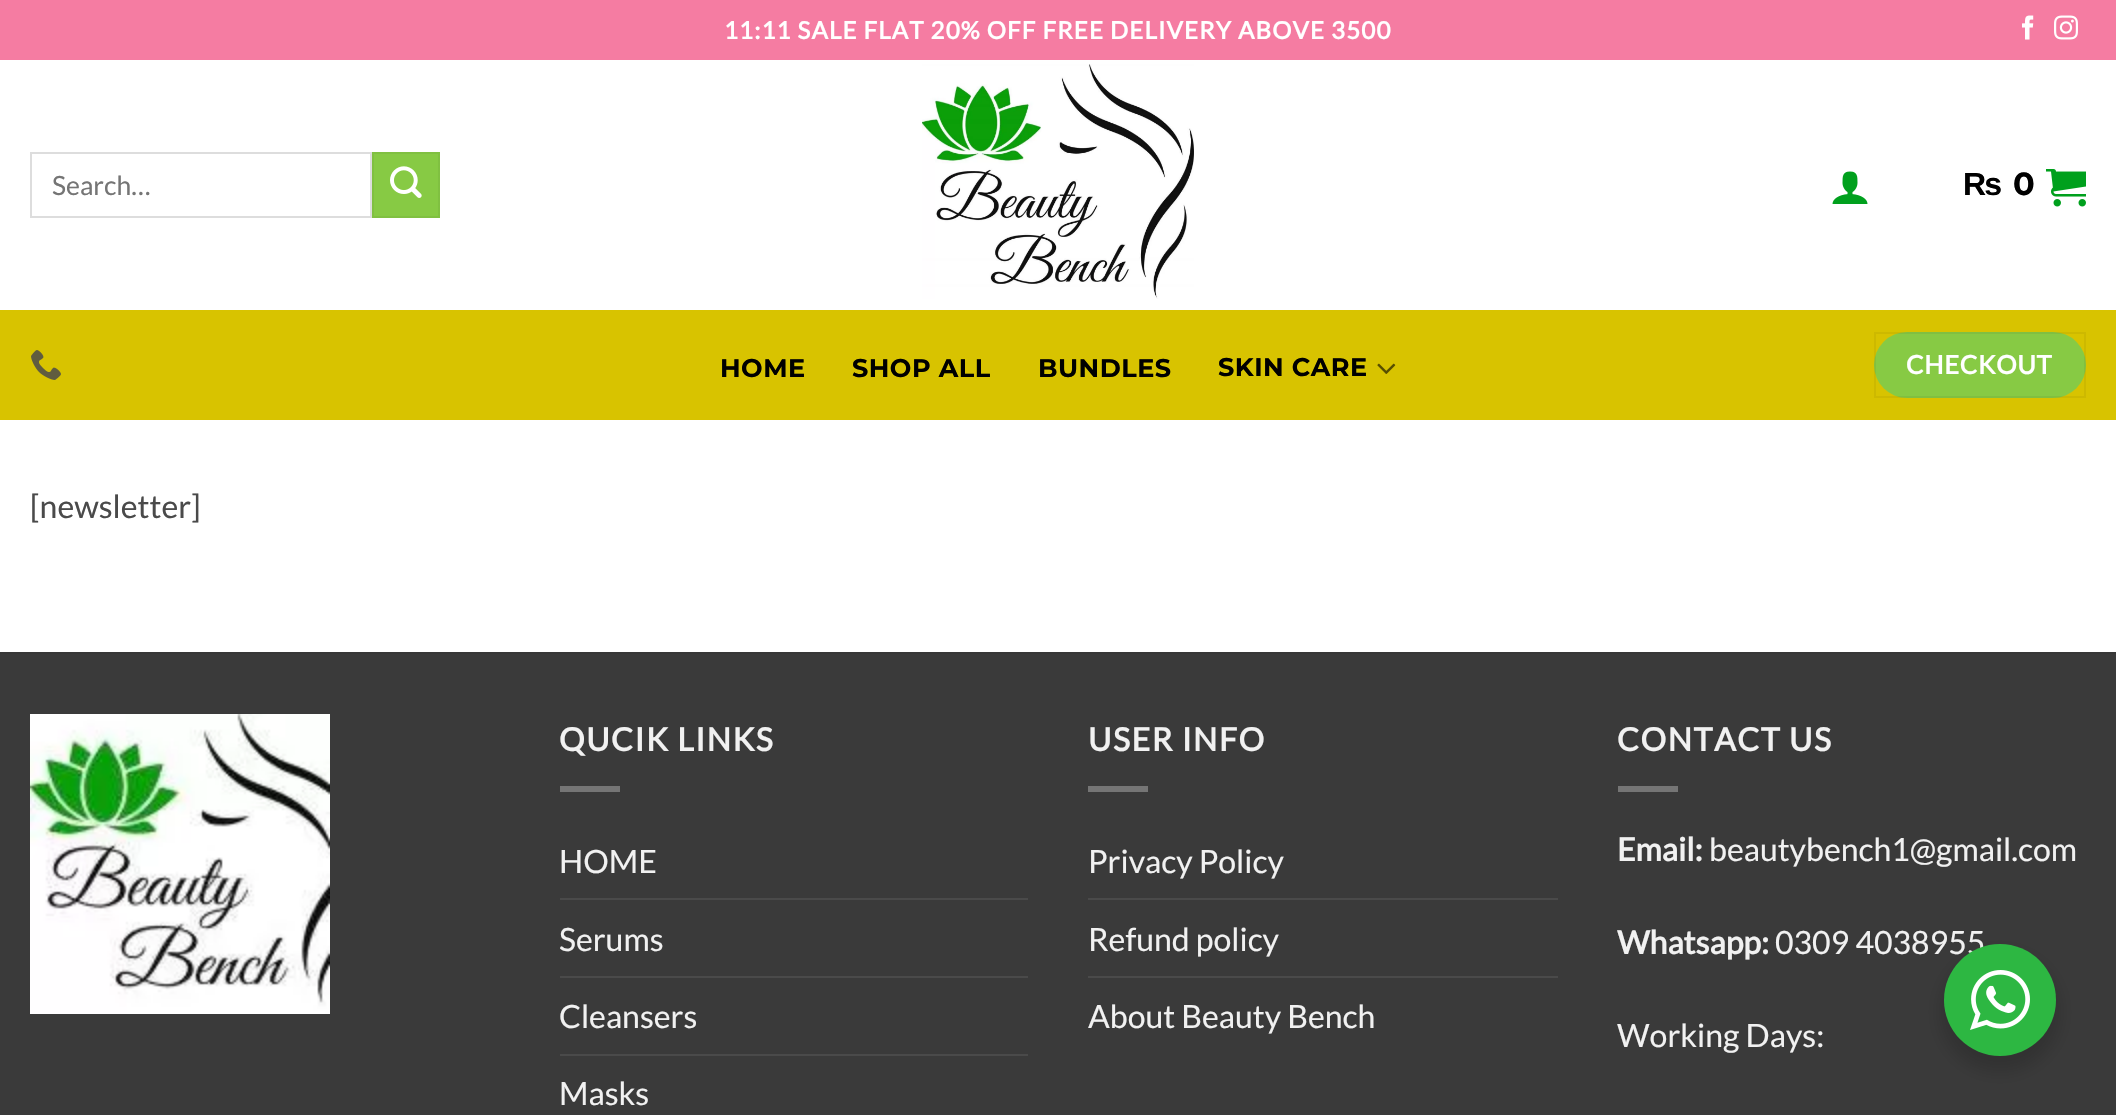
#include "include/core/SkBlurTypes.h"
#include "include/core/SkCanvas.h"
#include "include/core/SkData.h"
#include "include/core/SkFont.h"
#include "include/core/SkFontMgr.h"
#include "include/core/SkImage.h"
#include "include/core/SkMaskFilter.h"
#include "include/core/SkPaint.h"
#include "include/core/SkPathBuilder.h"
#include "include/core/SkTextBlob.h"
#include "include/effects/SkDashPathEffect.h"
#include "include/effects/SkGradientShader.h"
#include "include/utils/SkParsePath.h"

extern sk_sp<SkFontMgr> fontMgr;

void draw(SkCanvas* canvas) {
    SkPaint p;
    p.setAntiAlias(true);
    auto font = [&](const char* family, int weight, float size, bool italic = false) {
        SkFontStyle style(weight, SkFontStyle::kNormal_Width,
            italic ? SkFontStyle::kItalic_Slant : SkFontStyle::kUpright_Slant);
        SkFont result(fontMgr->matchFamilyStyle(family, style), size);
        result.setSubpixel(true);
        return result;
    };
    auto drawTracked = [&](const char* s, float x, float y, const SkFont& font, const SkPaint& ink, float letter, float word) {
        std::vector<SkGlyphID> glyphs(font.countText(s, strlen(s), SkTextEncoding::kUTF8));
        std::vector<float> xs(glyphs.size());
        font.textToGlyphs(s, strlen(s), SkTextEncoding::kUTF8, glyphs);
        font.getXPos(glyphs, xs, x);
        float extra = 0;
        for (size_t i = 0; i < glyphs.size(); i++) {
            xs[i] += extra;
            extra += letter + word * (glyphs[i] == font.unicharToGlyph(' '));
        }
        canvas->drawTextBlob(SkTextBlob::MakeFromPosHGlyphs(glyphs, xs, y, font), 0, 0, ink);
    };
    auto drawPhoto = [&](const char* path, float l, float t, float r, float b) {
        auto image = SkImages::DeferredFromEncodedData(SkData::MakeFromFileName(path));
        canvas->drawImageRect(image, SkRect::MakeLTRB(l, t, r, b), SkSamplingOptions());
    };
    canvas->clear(0xFFFFFFFF);
    p.setColor(0xFFF57CA2);
    canvas->drawRect(SkRect::MakeLTRB(0, 0, 2116, 60), p);
    auto font1 = font("Lato", 700, 24);
    p.setColor(0xFFFFFFFF);
    drawTracked("11:11 SALE FLAT 20% OFF FREE DELIVERY ABOVE 3500", 724, 39, font1, p, 1.2f, 0);
    drawPhoto("media/1.png", 2022, 15, 2034, 40);
    drawPhoto("media/2.png", 2054, 15, 2078, 40);
    p.setStyle(SkPaint::kStroke_Style);
    p.setStrokeWidth(2);
    p.setColor(0xFFDDDDDD);
    canvas->drawRect(SkRect::MakeLTRB(31, 153, 371, 217), p);
    auto font2 = font("Lato", 400, 26.5f);
    p.setStyle(SkPaint::kFill_Style);
    p.setColor(0xFF757575);
    canvas->drawString("Search…", 52, 195, font2, p);
    p.setColor(0xFF87CA44);
    canvas->drawRect(SkRect::MakeLTRB(373, 153, 439, 217), p);
    p.setStyle(SkPaint::kStroke_Style);
    p.setColor(0xFF80C041);
    canvas->drawRect(SkRect::MakeLTRB(373, 153, 439, 217), p);
    drawPhoto("media/3.png", 390, 166, 422, 198);
    drawPhoto("media/4.png", 922, 64, 1194, 299);
    drawPhoto("media/5.png", 1832, 171, 1868, 204);
    auto font3 = font("Liberation Sans", 700, 32);
    p.setStyle(SkPaint::kFill_Style);
    p.setColor(0xFF000000);
    drawTracked("₨", 1963, 195, font3, p, 1, 0);
    auto font4 = font("Montserrat", 700, 32);
    drawTracked("0", 2013, 195, font4, p, 1, 0);
    drawPhoto("media/6.png", 2046, 169, 2086, 207);
    p.setColor(0xFFD8C300);
    canvas->drawRect(SkRect::MakeLTRB(0, 310, 2116, 420), p);
    drawPhoto("media/7.png", 31, 350, 61, 380);
    auto font5 = font("Montserrat", 700, 25.5f);
    p.setColor(0xFF000000);
    {
        const struct { const char* s; float x, y; } items[] = {
            {"HOME", 720, 377},
            {"SHOP ALL", 852, 377},
            {"BUNDLES", 1038, 377},
            {"SKIN CARE", 1218, 376},
        };
        for (auto [s, x, y] : items) {
            drawTracked(s, x, y, font5, p, 0.5f, 0);
        }
    }
    drawPhoto("media/8.png", 1377, 363, 1396, 374);
    p.setColor(0xFF87CA44);
    canvas->drawRoundRect(SkRect::MakeLTRB(1874, 332, 2086, 398), 33, 33, p);
    p.setStyle(SkPaint::kStroke_Style);
    p.setColor(0x0D000000);
    canvas->drawRect(SkRect::MakeLTRB(1875, 333, 2085, 397), p);
    auto font6 = font("Lato", 700, 25.5f);
    p.setStyle(SkPaint::kFill_Style);
    p.setColor(0xFFFFFFFF);
    drawTracked("CHECKOUT", 1906, 374, font6, p, 0.75f, 0);
    auto font7 = font("Lato", 400, 32);
    p.setColor(0xFF4A4A4A);
    canvas->drawString("[newsletter]", 30, 518, font7, p);
    p.setColor(0xFF3A3A3A);
    canvas->drawRect(SkRect::MakeLTRB(0, 654, 2116, 1115), p);
    p.setColor(0xFF373737);
    canvas->drawRect(SkRect::MakeLTRB(0, 652, 2116, 654), p);
    drawPhoto("media/9.png", 30, 714, 330, 1014);
    auto font8 = font("Lato", 700, 32);
    p.setColor(0xFFF1F1F1);
    drawTracked("QUCIK LINKS", 559, 751, font8, p, 1.6f, 0);
    p.setColor(0xFF757575);
    canvas->drawRect(SkRect::MakeLTRB(560, 786, 620, 792), p);
    p.setColor(0xFFF1F1F1);
    canvas->drawString("HOME", 559, 873, font7, p);
    p.setColor(0xFF4A4A4A);
    canvas->drawRect(SkRect::MakeLTRB(560, 898, 1028, 900), p);
    p.setColor(0xFFF1F1F1);
    canvas->drawString("Serums", 559, 951, font7, p);
    p.setColor(0xFF4A4A4A);
    canvas->drawRect(SkRect::MakeLTRB(560, 976, 1028, 978), p);
    p.setColor(0xFFF1F1F1);
    canvas->drawString("Cleansers", 559, 1028, font7, p);
    p.setColor(0xFF4A4A4A);
    canvas->drawRect(SkRect::MakeLTRB(560, 1054, 1028, 1056), p);
    p.setColor(0xFFF1F1F1);
    canvas->drawString("Masks", 559, 1105, font7, p);
    drawTracked("USER INFO", 1088, 751, font8, p, 1.6f, 0);
    p.setColor(0xFF757575);
    canvas->drawRect(SkRect::MakeLTRB(1088, 786, 1148, 792), p);
    p.setColor(0xFFF1F1F1);
    canvas->drawString("Privacy Policy", 1088, 873, font7, p);
    p.setColor(0xFF4A4A4A);
    canvas->drawRect(SkRect::MakeLTRB(1088, 898, 1558, 900), p);
    p.setColor(0xFFF1F1F1);
    canvas->drawString("Refund policy", 1088, 951, font7, p);
    p.setColor(0xFF4A4A4A);
    canvas->drawRect(SkRect::MakeLTRB(1088, 976, 1558, 978), p);
    p.setColor(0xFFF1F1F1);
    canvas->drawString("About Beauty Bench", 1088, 1028, font7, p);
    drawTracked("CONTACT US", 1617, 751, font8, p, 1.6f, 0);
    p.setColor(0xFF757575);
    canvas->drawRect(SkRect::MakeLTRB(1618, 786, 1678, 792), p);
    p.setColor(0xFFF1F1F1);
    canvas->drawString("Email:", 1617, 861, font8, p);
    canvas->drawString("beautybench1@gmail.com", 1709, 861, font7, p);
    canvas->drawString("Whatsapp:", 1617, 954, font8, p);
    canvas->drawString("0309 4038955", 1775, 954, font7, p);
    canvas->drawString("Working Days:", 1617, 1047, font7, p);
    p.setColor(0x24000000);
    p.setMaskFilter(SkMaskFilter::MakeBlur(kNormal_SkBlurStyle, 8));
    canvas->drawRoundRect(SkRect::MakeLTRB(1940, 952, 2060, 1072), 60, 60, p);
    p.setMaskFilter(nullptr);
    p.setColor(0xFF2DB742);
    canvas->drawCircle(2000, 1000, 56, p);
    drawPhoto("media/10.png", 1970, 970, 2030, 1030);
}
